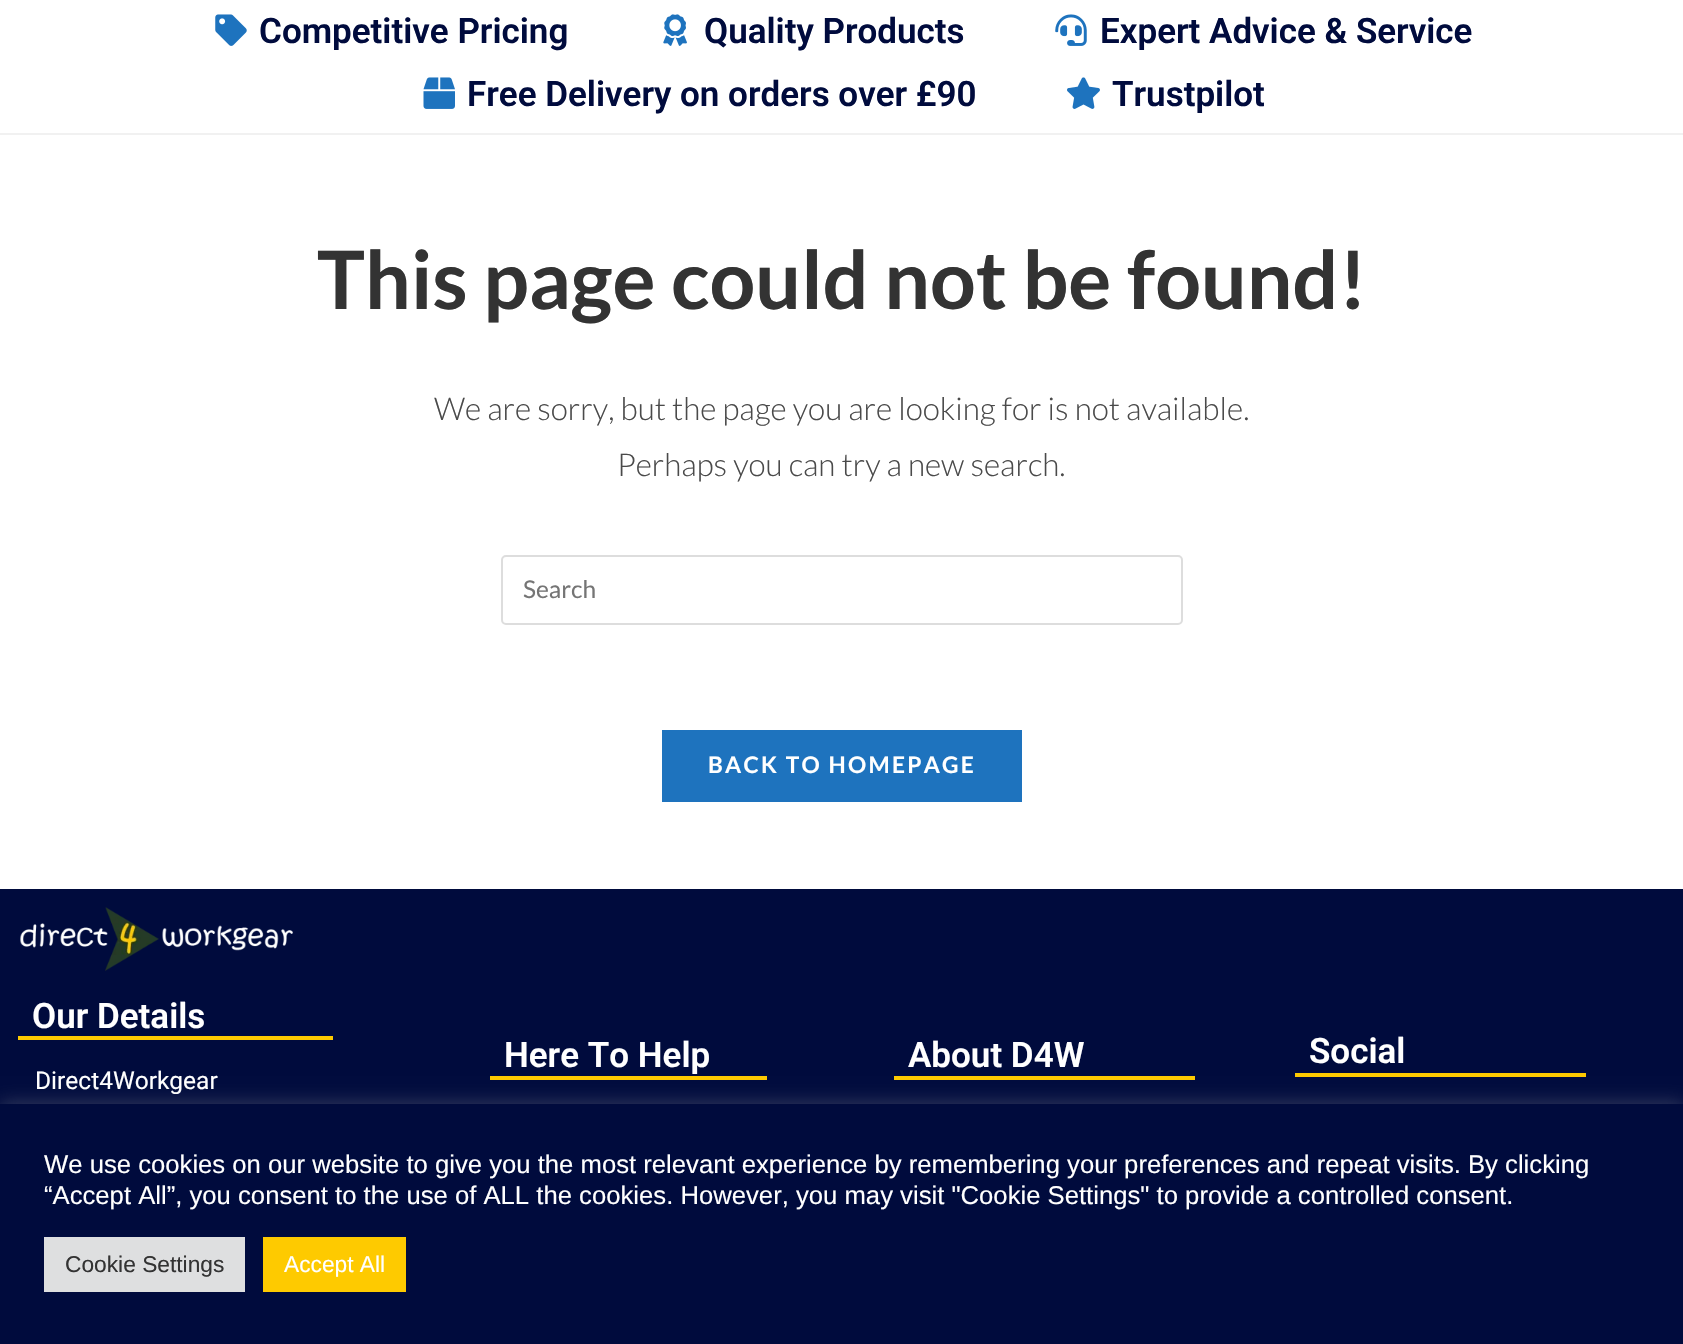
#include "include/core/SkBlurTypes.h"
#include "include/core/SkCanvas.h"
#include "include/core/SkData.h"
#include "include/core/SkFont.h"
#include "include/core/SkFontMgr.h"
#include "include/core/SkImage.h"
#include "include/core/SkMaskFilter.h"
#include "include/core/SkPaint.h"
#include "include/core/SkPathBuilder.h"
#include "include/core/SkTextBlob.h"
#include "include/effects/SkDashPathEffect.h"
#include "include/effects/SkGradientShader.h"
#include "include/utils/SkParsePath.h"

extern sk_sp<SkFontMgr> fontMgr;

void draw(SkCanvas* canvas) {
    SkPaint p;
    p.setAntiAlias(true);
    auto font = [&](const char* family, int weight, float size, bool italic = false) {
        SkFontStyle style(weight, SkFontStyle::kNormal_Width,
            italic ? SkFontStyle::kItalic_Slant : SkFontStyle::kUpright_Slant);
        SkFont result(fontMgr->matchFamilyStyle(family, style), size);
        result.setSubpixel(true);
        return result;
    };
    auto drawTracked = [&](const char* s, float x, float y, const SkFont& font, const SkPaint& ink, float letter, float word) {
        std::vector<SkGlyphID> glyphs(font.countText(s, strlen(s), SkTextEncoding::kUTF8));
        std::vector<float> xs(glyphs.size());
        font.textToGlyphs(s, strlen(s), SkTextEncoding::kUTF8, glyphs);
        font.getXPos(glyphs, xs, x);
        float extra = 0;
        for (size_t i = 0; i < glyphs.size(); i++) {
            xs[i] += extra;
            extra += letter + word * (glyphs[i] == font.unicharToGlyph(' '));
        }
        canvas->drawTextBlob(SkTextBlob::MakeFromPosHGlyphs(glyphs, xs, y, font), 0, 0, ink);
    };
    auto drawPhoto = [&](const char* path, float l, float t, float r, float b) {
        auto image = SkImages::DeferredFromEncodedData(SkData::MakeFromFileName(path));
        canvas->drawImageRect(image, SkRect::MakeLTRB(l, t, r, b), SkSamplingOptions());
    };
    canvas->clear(0xFFFFFFFF);
    p.setColor(0xFFF1F1F1);
    canvas->drawRect(SkRect::MakeLTRB(0, 133, 1683, 135), p);
    drawPhoto("media/1.png", 215, 14, 247, 46);
    auto font1 = font("Roboto", 600, 35);
    p.setColor(0xFF000B3D);
    canvas->drawString("Competitive Pricing", 259, 43, font1, p);
    drawPhoto("media/2.png", 663, 14, 687, 46);
    canvas->drawString("Quality Products", 704, 43, font1, p);
    drawPhoto("media/3.png", 1055, 14, 1087, 46);
    canvas->drawString("Expert Advice & Service", 1100, 43, font1, p);
    drawPhoto("media/4.png", 423, 77, 455, 109);
    canvas->drawString("Free Delivery on orders over £90", 467, 106, font1, p);
    drawPhoto("media/5.png", 1067, 77, 1100, 109);
    canvas->drawString("Trustpilot", 1112, 106, font1, p);
    auto font2 = font("Lato", 700, 80.5f);
    p.setColor(0xFF333333);
    canvas->drawString("This page could not be found!", 317, 309, font2, p);
    auto font3 = font("Lato", 300, 31.5f);
    p.setColor(0xFF4A4A4A);
    canvas->drawString("We are sorry, but the page you are looking for is not available.", 434, 420, font3, p);
    canvas->drawString("Perhaps you can try a new search.", 617, 476, font3, p);
    p.setStyle(SkPaint::kStroke_Style);
    p.setStrokeWidth(2);
    p.setColor(0xFFDDDDDD);
    canvas->drawRoundRect(SkRect::MakeLTRB(502, 556, 1182, 624), 4, 4, p);
    auto font4 = font("Lato", 400, 24.5f);
    p.setStyle(SkPaint::kFill_Style);
    p.setColor(0xFF757575);
    canvas->drawString("Search", 523, 598, font4, p);
    p.setColor(0xFF1E73BE);
    canvas->drawRect(SkRect::MakeLTRB(662, 730, 1022, 802), p);
    auto font5 = font("Lato", 700, 22.75f);
    p.setColor(0xFFFFFFFF);
    drawTracked("BACK TO HOMEPAGE", 708, 773, font5, p, 2.25f, 0);
    p.setColor(0xFF000B3D);
    canvas->drawRect(SkRect::MakeLTRB(0, 889, 1683, 1104), p);
    drawPhoto("media/6.png", 20, 907, 293, 971);
    p.setColor(0xFFFFFFFF);
    canvas->drawString("Our Details", 32, 1028, font1, p);
    p.setColor(0xFFFECA00);
    canvas->drawRect(SkRect::MakeLTRB(18, 1036, 333, 1040), p);
    auto font6 = font("Roboto", 400, 24.5f);
    p.setColor(0xFFFFFFFF);
    canvas->drawString("Direct4Workgear", 35, 1089, font6, p);
    canvas->drawString("Here To Help", 504, 1067, font1, p);
    p.setColor(0xFFFECA00);
    canvas->drawRect(SkRect::MakeLTRB(490, 1076, 767, 1080), p);
    p.setColor(0xFFFFFFFF);
    canvas->drawString("About D4W", 908, 1067, font1, p);
    p.setColor(0xFFFECA00);
    canvas->drawRect(SkRect::MakeLTRB(894, 1076, 1195, 1080), p);
    p.setColor(0xFFFFFFFF);
    canvas->drawString("Social", 1309, 1063, font1, p);
    p.setColor(0xFFFECA00);
    canvas->drawRect(SkRect::MakeLTRB(1295, 1073, 1586, 1077), p);
    p.setColor(0x4DACABAB);
    p.setMaskFilter(SkMaskFilter::MakeBlur(kNormal_SkBlurStyle, 9));
    canvas->drawRect(SkRect::MakeLTRB(0, 1103, 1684, 1342), p);
    p.setMaskFilter(nullptr);
    p.setColor(0xFF000B3D);
    canvas->drawRect(SkRect::MakeLTRB(0, 1104, 1683, 1344), p);
    auto font7 = font("Liberation Sans", 400, 25.67f);
    p.setColor(0xFFFFFFFF);
    canvas->drawString("We use cookies on our website to give you the most relevant experience by remembering your preferences and repeat visits. By clicking", 44, 1173, font7, p);
    canvas->drawString("“Accept All”, you consent to the use of ALL the cookies. However, you may visit \"Cookie Settings\" to provide a controlled consent.", 44, 1204, font7, p);
    p.setColor(0xFFDEDFE0);
    canvas->drawRect(SkRect::MakeLTRB(44, 1237, 245, 1292), p);
    auto font8 = font("Liberation Sans", 400, 22.75f);
    p.setColor(0xFF333333);
    canvas->drawString("Cookie Settings", 65, 1272, font8, p);
    p.setColor(0xFFFECA00);
    canvas->drawRect(SkRect::MakeLTRB(263, 1237, 406, 1292), p);
    p.setColor(0xFFFFFFFF);
    canvas->drawString("Accept All", 284, 1272, font8, p);
}
